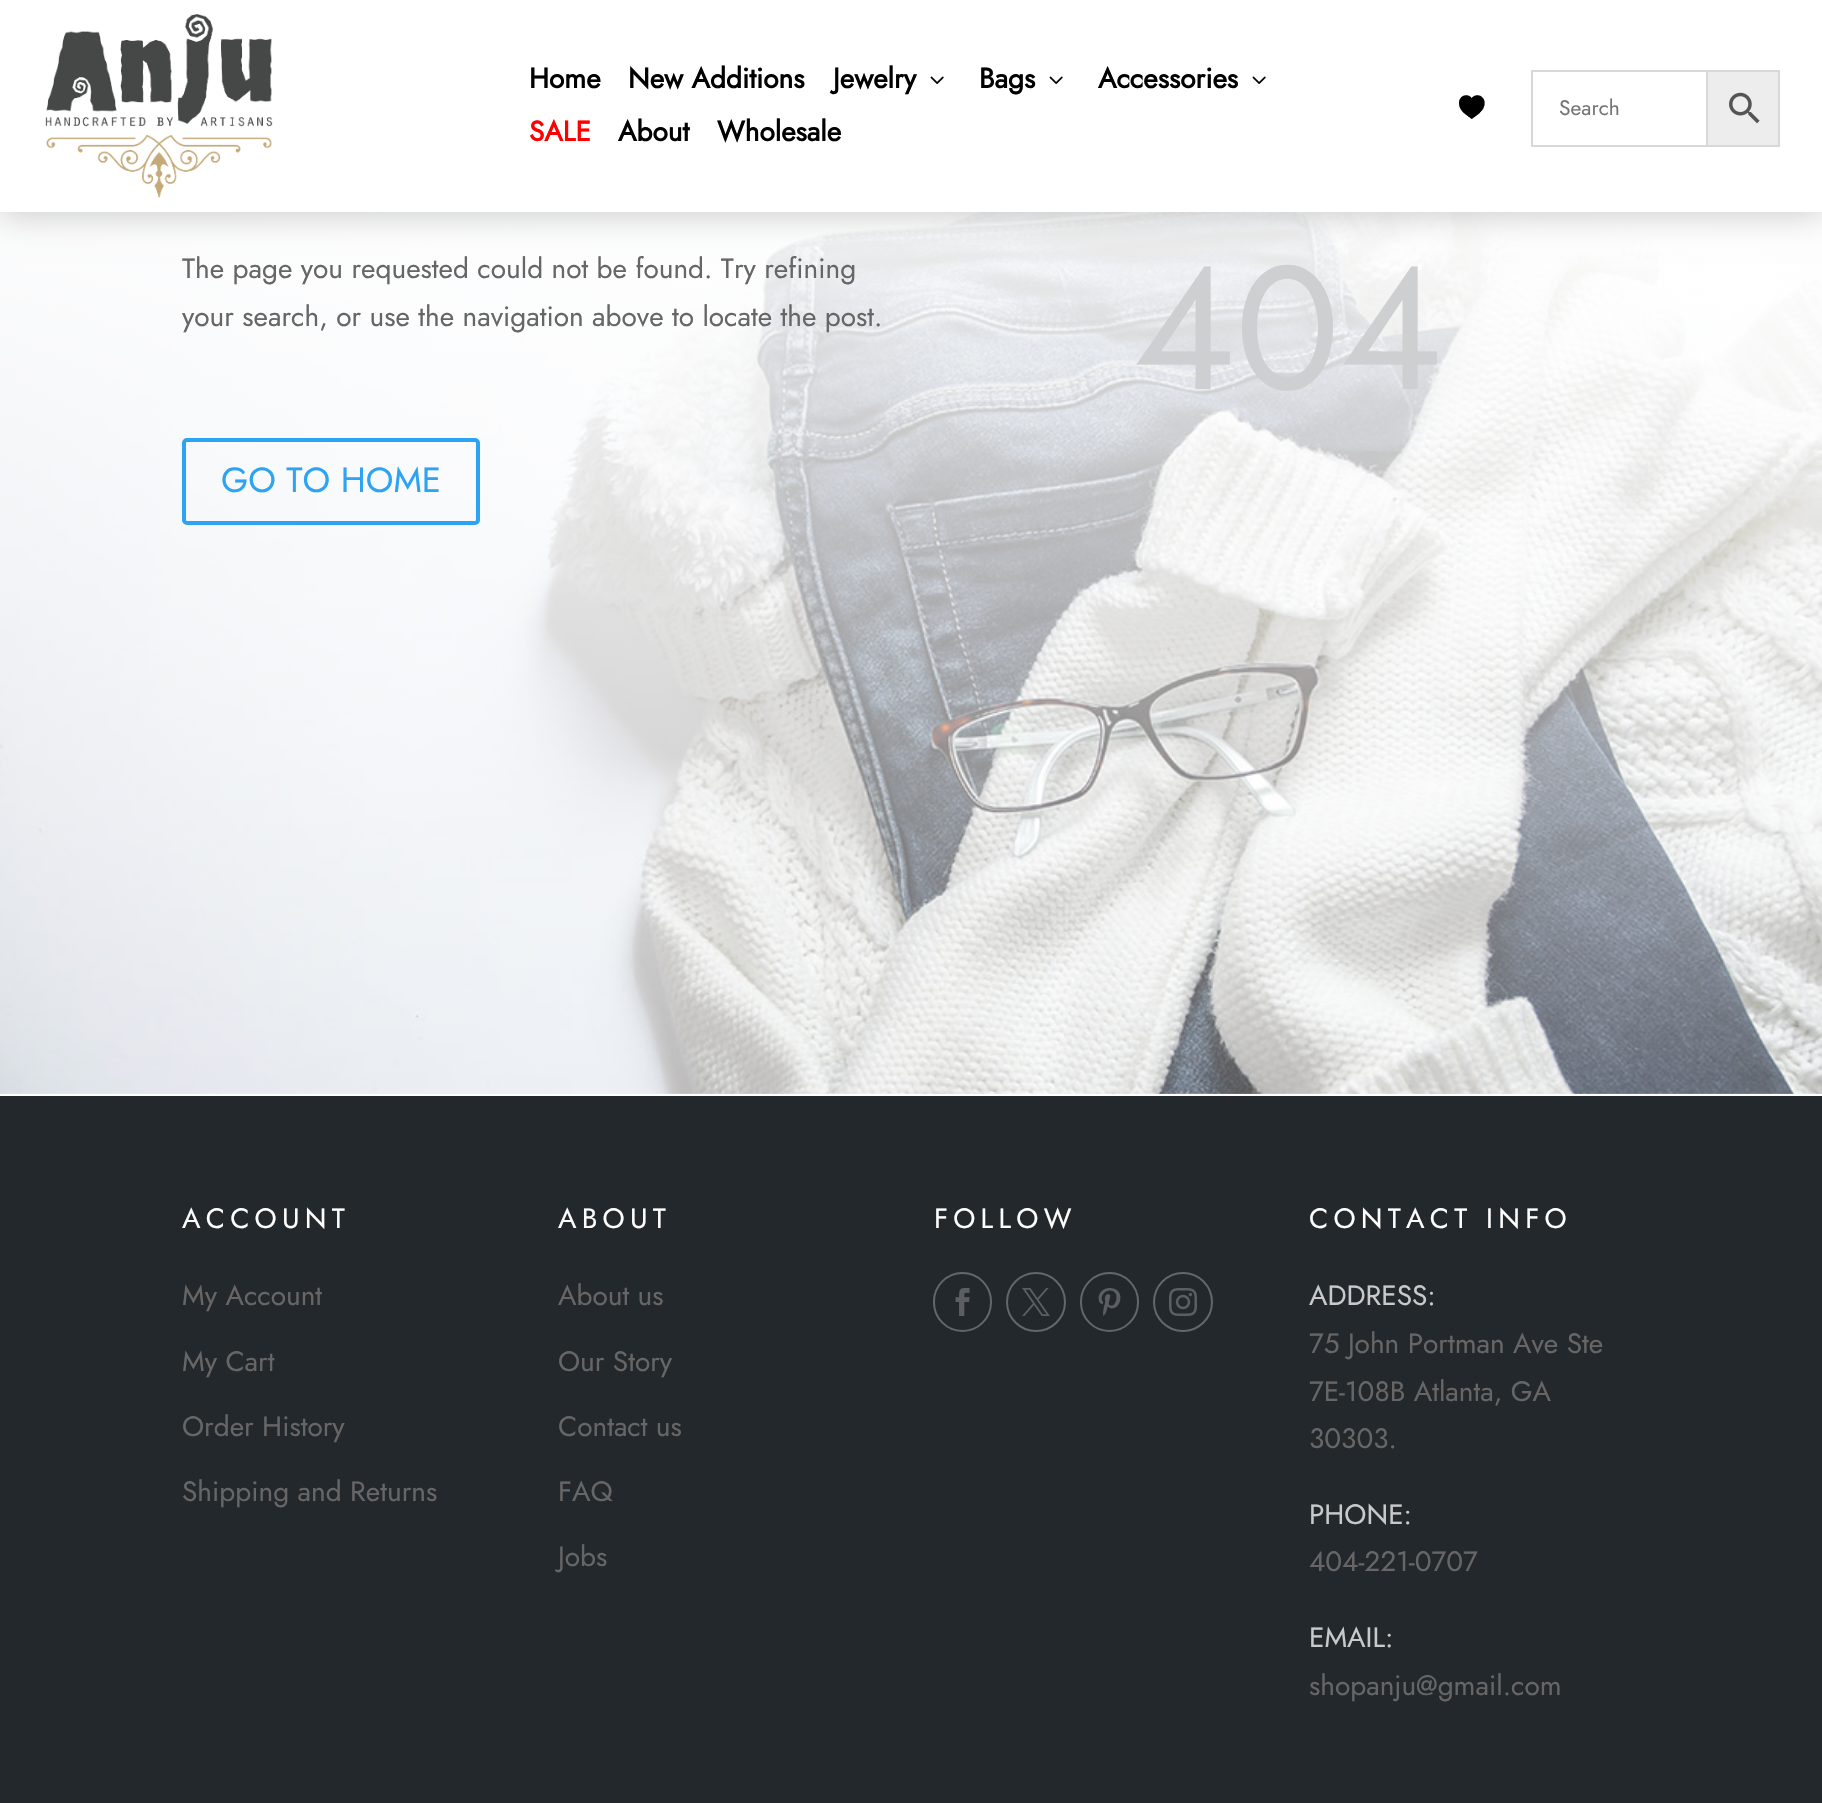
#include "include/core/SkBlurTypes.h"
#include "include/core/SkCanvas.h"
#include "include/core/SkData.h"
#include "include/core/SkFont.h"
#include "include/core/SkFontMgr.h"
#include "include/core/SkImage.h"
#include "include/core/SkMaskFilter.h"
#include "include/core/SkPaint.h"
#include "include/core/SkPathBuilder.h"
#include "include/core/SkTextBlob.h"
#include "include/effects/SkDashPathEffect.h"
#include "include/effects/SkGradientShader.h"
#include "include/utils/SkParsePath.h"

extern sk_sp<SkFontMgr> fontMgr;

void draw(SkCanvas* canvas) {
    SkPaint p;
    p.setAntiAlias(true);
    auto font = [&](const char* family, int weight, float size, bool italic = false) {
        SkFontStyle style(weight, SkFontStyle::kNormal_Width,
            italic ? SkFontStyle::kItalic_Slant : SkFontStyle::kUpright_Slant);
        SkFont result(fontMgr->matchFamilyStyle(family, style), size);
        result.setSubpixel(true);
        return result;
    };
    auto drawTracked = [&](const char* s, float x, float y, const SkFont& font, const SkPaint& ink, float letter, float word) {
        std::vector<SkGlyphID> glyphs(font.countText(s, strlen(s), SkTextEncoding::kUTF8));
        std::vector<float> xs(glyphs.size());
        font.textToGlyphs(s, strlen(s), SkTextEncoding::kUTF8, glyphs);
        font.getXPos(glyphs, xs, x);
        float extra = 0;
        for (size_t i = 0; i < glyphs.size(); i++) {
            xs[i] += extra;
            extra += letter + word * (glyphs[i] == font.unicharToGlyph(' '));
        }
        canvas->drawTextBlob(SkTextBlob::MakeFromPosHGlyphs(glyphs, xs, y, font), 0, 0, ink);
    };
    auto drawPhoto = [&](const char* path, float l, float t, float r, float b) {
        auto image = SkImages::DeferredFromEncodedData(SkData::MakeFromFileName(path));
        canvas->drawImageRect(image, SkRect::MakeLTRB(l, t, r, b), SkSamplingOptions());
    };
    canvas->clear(0xFFFFFFFF);
    drawPhoto("media/5.png", 0, 212, 1822, 1094);
    p.setColor(0x33000000);
    p.setMaskFilter(SkMaskFilter::MakeBlur(kNormal_SkBlurStyle, 16));
    canvas->drawRect(SkRect::MakeLTRB(0, 4, 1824, 215), p);
    p.setMaskFilter(nullptr);
    p.setColor(0xFFFFFFFF);
    canvas->drawRect(SkRect::MakeLTRB(0, 0, 1822, 212), p);
    drawPhoto("media/1.png", 45, 14, 273, 198);
    auto font1 = font("Jost", 700, 28);
    p.setColor(0xFF000000);
    {
        const struct { const char* s; float x, y; } items[] = {
            {"Home", 529, 88},
            {"New Additions", 628, 88},
            {"Jewelry", 833, 88},
        };
        for (auto [s, x, y] : items) {
            canvas->drawString(s, x, y, font1, p);
        }
    }
    drawPhoto("media/2.png", 930, 76, 944, 84);
    canvas->drawString("Bags", 979, 88, font1, p);
    drawPhoto("media/2.png", 1049, 76, 1063, 84);
    canvas->drawString("Accessories", 1098, 88, font1, p);
    drawPhoto("media/2.png", 1252, 76, 1266, 84);
    p.setColor(0xFFFF0000);
    canvas->drawString("SALE", 529, 141, font1, p);
    p.setColor(0xFF000000);
    canvas->drawString("About", 618, 141, font1, p);
    canvas->drawString("Wholesale", 717, 141, font1, p);
    drawPhoto("media/3.png", 1459, 95, 1485, 119);
    p.setColor(0xFFEDEDED);
    canvas->drawRect(SkRect::MakeLTRB(1707, 71, 1779, 146), p);
    p.setStyle(SkPaint::kStroke_Style);
    p.setStrokeWidth(2);
    p.setColor(0xFFD8D8D8);
    canvas->drawRect(SkRect::MakeLTRB(1707, 71, 1779, 146), p);
    canvas->drawRect(SkRect::MakeLTRB(1532, 71, 1707, 146), p);
    auto font2 = font("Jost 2", 400, 21);
    p.setStyle(SkPaint::kFill_Style);
    p.setColor(0xFF757575);
    canvas->drawString("Search", 1559, 115, font2, p);
    drawPhoto("media/4.png", 1729, 92, 1760, 124);
    auto font3 = font("Jost", 400, 28);
    p.setColor(0xFF666666);
    canvas->drawString("The page you requested could not be found. Try refining", 182, 278, font3, p);
    canvas->drawString("your search, or use the navigation above to locate the post.", 182, 326, font3, p);
    p.setStyle(SkPaint::kStroke_Style);
    p.setStrokeWidth(4);
    p.setColor(0xFF2EA3F2);
    canvas->drawRoundRect(SkRect::MakeLTRB(184, 440, 478, 523), 3, 3, p);
    auto font4 = font("Jost", 400, 35);
    p.setStyle(SkPaint::kFill_Style);
    canvas->drawString("GO TO HOME", 221, 492, font4, p);
    auto font5 = font("Jost", 400, 175);
    p.setColor(0xFFCECFD0);
    canvas->drawString("404", 1133, 389, font5, p);
    p.setColor(0xFF23282D);
    canvas->drawRect(SkRect::MakeLTRB(0, 1096, 1822, 1803), p);
    p.setColor(0xFFFFFFFF);
    drawTracked("ACCOUNT", 182, 1228, font3, p, 5.25f, 0);
    p.setColor(0xFF666666);
    {
        const struct { const char* s; float x, y; } items[] = {
            {"My Account", 182, 1305},
            {"My Cart", 182, 1371},
            {"Order History", 182, 1436},
            {"Shipping and Returns", 182, 1501},
        };
        for (auto [s, x, y] : items) {
            canvas->drawString(s, x, y, font3, p);
        }
    }
    p.setColor(0xFFFFFFFF);
    drawTracked("ABOUT", 558, 1228, font3, p, 5.25f, 0);
    p.setColor(0xFF666666);
    {
        const struct { const char* s; float x, y; } items[] = {
            {"About us", 558, 1305},
            {"Our Story", 558, 1371},
            {"Contact us", 558, 1436},
            {"FAQ", 558, 1501},
            {"Jobs", 558, 1566},
        };
        for (auto [s, x, y] : items) {
            canvas->drawString(s, x, y, font3, p);
        }
    }
    p.setColor(0xFFFFFFFF);
    drawTracked("FOLLOW", 934, 1228, font3, p, 5.25f, 0);
    p.setStyle(SkPaint::kStroke_Style);
    p.setStrokeWidth(2);
    p.setColor(0xFF63666A);
    canvas->drawRoundRect(SkRect::MakeLTRB(934, 1273, 991, 1331), 28.5f, 28.5f, p);
    drawPhoto("media/6.png", 955, 1288, 970, 1316);
    canvas->drawCircle(1036, 1302, 29, p);
    drawPhoto("media/7.png", 1022, 1288, 1050, 1316);
    canvas->drawRoundRect(SkRect::MakeLTRB(1081, 1273, 1138, 1331), 28.5f, 28.5f, p);
    drawPhoto("media/8.png", 1098, 1288, 1121, 1316);
    canvas->drawCircle(1183, 1302, 29, p);
    drawPhoto("media/9.png", 1169, 1288, 1197, 1316);
    p.setStyle(SkPaint::kFill_Style);
    p.setColor(0xFFFFFFFF);
    drawTracked("CONTACT INFO", 1309, 1228, font3, p, 5.25f, 0);
    p.setColor(0xFFC8C9CB);
    canvas->drawString("ADDRESS:", 1309, 1305, font3, p);
    p.setColor(0xFF666666);
    {
        const struct { const char* s; float x, y; } items[] = {
            {"75 John Portman Ave Ste", 1309, 1353},
            {"7E-108B Atlanta, GA", 1309, 1401},
            {"30303.", 1309, 1448},
        };
        for (auto [s, x, y] : items) {
            canvas->drawString(s, x, y, font3, p);
        }
    }
    p.setColor(0xFFC8C9CB);
    canvas->drawString("PHONE:", 1309, 1524, font3, p);
    p.setColor(0xFF666666);
    canvas->drawString("404-221-0707", 1309, 1571, font3, p);
    p.setColor(0xFFC8C9CB);
    canvas->drawString("EMAIL:", 1309, 1647, font3, p);
    p.setColor(0xFF666666);
    canvas->drawString("shopanju@gmail.com", 1309, 1695, font3, p);
}
